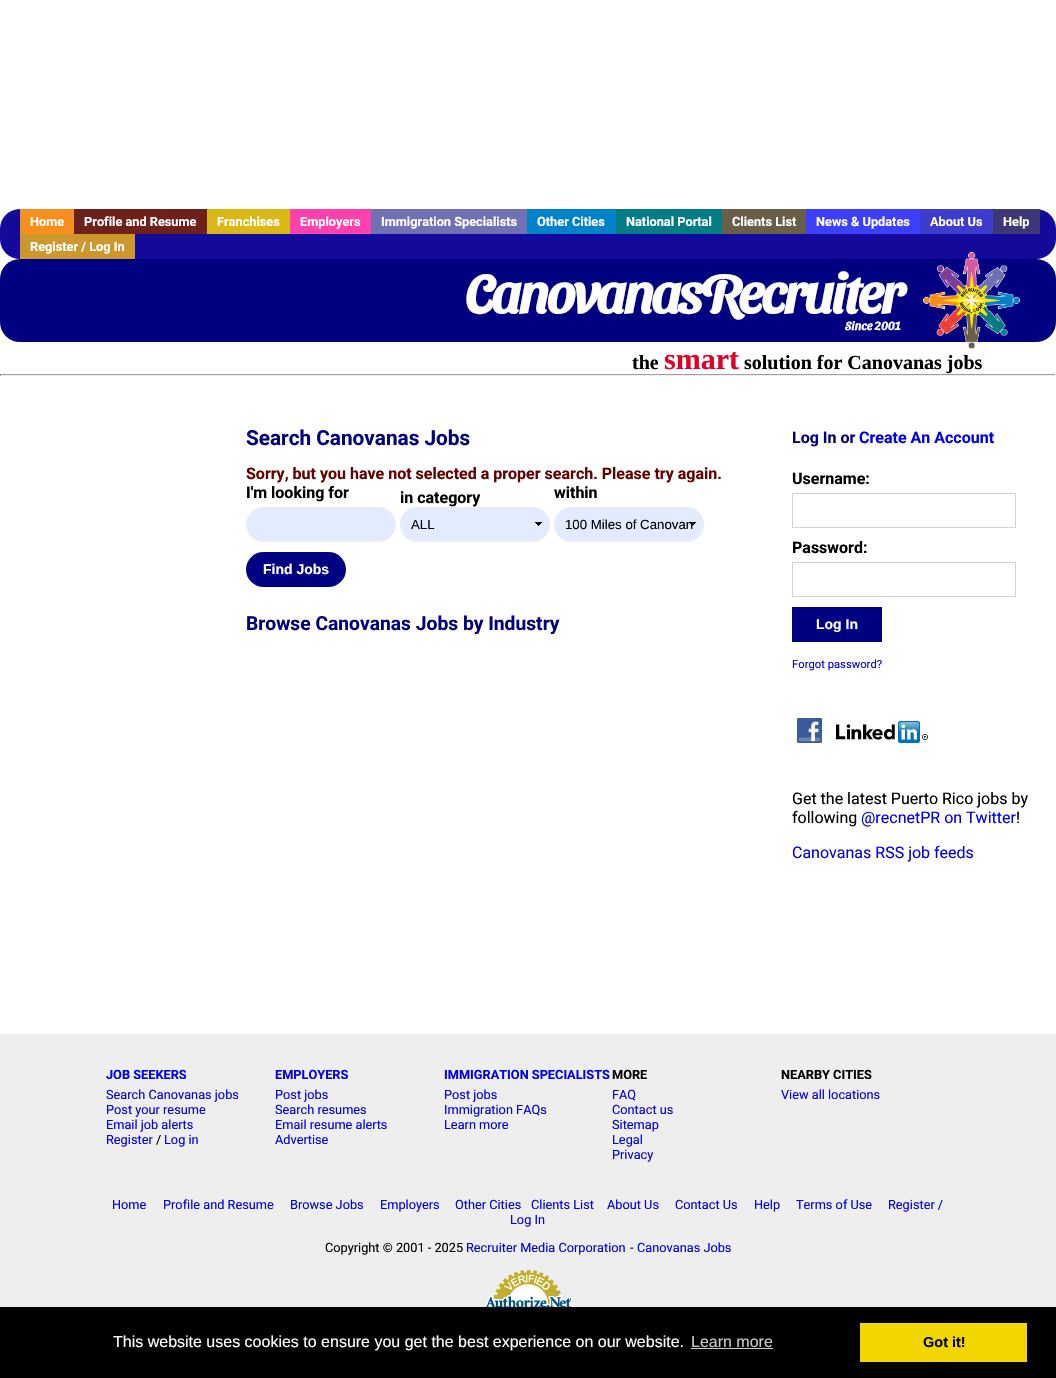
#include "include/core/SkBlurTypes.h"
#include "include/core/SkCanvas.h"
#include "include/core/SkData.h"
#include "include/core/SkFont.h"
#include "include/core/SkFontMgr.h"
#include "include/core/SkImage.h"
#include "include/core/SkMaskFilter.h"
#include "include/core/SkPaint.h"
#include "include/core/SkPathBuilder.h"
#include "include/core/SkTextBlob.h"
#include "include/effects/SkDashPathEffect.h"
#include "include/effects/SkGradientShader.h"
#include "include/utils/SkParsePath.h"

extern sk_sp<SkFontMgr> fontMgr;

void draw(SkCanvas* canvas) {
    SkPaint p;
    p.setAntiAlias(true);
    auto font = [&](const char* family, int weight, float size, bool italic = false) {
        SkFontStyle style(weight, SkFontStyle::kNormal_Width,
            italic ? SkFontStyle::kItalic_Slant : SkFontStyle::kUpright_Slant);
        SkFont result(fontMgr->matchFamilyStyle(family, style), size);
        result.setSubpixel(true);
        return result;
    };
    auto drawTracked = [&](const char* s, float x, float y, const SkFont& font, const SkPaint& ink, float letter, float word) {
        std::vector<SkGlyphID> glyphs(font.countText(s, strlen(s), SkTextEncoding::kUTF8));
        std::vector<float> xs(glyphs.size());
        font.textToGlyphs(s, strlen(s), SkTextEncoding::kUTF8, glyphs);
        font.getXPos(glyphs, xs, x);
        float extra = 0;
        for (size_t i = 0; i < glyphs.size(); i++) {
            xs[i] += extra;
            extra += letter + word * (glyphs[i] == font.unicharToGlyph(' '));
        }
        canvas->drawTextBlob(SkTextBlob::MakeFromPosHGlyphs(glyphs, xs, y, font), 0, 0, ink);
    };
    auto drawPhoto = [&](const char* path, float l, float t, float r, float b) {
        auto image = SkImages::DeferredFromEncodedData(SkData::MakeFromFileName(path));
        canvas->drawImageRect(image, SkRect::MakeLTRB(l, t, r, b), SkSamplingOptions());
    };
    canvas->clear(0xFFFFFFFF);
    p.setColor(0xFF13099A);
    canvas->drawRoundRect(SkRect::MakeLTRB(0, 209, 1056, 259), 20, 20, p);
    p.setColor(0xFFF68F1D);
    canvas->drawRect(SkRect::MakeLTRB(20, 209, 74, 234), p);
    auto font1 = font("Roboto", 700, 12.75f);
    p.setColor(0xFFFFFFFF);
    canvas->drawString("Home", 30, 226, font1, p);
    p.setColor(0xFF6E201B);
    canvas->drawRect(SkRect::MakeLTRB(74, 209, 207, 234), p);
    p.setColor(0xFFFFFFFF);
    canvas->drawString("Profile and Resume", 84, 226, font1, p);
    p.setColor(0xFFD9B817);
    canvas->drawRect(SkRect::MakeLTRB(207, 209, 290, 234), p);
    p.setColor(0xFFFFFFFF);
    canvas->drawString("Franchises", 217, 226, font1, p);
    p.setColor(0xFFFF40AD);
    canvas->drawRect(SkRect::MakeLTRB(290, 209, 371, 234), p);
    p.setColor(0xFFFFFFFF);
    canvas->drawString("Employers", 300, 226, font1, p);
    p.setColor(0xFF7170B3);
    canvas->drawRect(SkRect::MakeLTRB(371, 209, 527, 234), p);
    p.setColor(0xFFFFFFFF);
    canvas->drawString("Immigration Specialists", 381, 226, font1, p);
    p.setColor(0xFF0082C8);
    canvas->drawRect(SkRect::MakeLTRB(527, 209, 616, 234), p);
    p.setColor(0xFFFFFFFF);
    canvas->drawString("Other Cities", 537, 226, font1, p);
    p.setColor(0xFF037C85);
    canvas->drawRect(SkRect::MakeLTRB(616, 209, 722, 234), p);
    p.setColor(0xFFFFFFFF);
    canvas->drawString("National Portal", 626, 226, font1, p);
    p.setColor(0xFF695E49);
    canvas->drawRect(SkRect::MakeLTRB(722, 209, 806, 234), p);
    p.setColor(0xFFFFFFFF);
    canvas->drawString("Clients List", 732, 226, font1, p);
    p.setColor(0xFF3D3FFF);
    canvas->drawRect(SkRect::MakeLTRB(806, 209, 920, 234), p);
    p.setColor(0xFFFFFFFF);
    canvas->drawString("News & Updates", 816, 226, font1, p);
    p.setColor(0xFF3D3CCC);
    canvas->drawRect(SkRect::MakeLTRB(920, 209, 993, 234), p);
    p.setColor(0xFFFFFFFF);
    canvas->drawString("About Us", 930, 226, font1, p);
    p.setColor(0xFF3D3777);
    canvas->drawRect(SkRect::MakeLTRB(993, 209, 1040, 234), p);
    p.setColor(0xFFFFFFFF);
    canvas->drawString("Help", 1003, 226, font1, p);
    p.setColor(0xFFCC982D);
    canvas->drawRect(SkRect::MakeLTRB(20, 234, 135, 259), p);
    p.setColor(0xFFFFFFFF);
    canvas->drawString("Register / Log In", 30, 251, font1, p);
    p.setColor(0xFF000080);
    canvas->drawRoundRect(SkRect::MakeLTRB(0, 259, 1056, 342), 20, 20, p);
    auto font2 = font("Sansita Swashed", 700, 55);
    p.setColor(0xFFFFFFFF);
    drawTracked("CanovanasRecruiter", 465, 313, font2, p, -3, 0);
    auto font3 = font("Sansita Swashed", 700, 12);
    canvas->drawString("Since 2001", 845, 330, font3, p);
    drawPhoto("media/1.png", 922, 251, 1021, 350);
    auto font4 = font("Liberation Serif", 700, 20);
    p.setColor(0xFF000000);
    canvas->drawString("the", 632, 369, font4, p);
    auto font5 = font("Liberation Serif", 700, 30);
    p.setColor(0xFFDE0025);
    canvas->drawString("smart", 664, 369, font5, p);
    p.setColor(0xFF000000);
    canvas->drawString("solution for Canovanas jobs", 744, 369, font4, p);
    {
        const struct { float l, t, r, b; SkColor color; } items[] = {
            {0, 374, 1056, 375, 0xFF9F9F9F},
            {1055, 374, 1056, 376, 0xFFEEEEEE},
            {0, 375, 1056, 376, 0xFFEEEEEE},
            {0, 374, 1, 376, 0xFF9F9F9F},
        };
        for (auto [l, t, r, b, color] : items) {
            p.setColor(color);
            canvas->drawRect(SkRect::MakeLTRB(l, t, r, b), p);
        }
    }
    auto font6 = font("Roboto", 700, 20.75f);
    p.setColor(0xFF000080);
    canvas->drawString("Search Canovanas Jobs", 246, 445, font6, p);
    auto font7 = font("Roboto", 700, 16);
    p.setColor(0xFF660000);
    canvas->drawString("Sorry, but you have not selected a proper search. Please try again.", 246, 479, font7, p);
    p.setColor(0xFF000000);
    canvas->drawString("I'm looking for", 246, 498, font7, p);
    p.setColor(0xFFE2EBFF);
    canvas->drawRoundRect(SkRect::MakeLTRB(246.5f, 507.5f, 395.5f, 541.5f), 17, 17, p);
    p.setStyle(SkPaint::kStroke_Style);
    p.setStrokeWidth(1);
    p.setColor(0xFFEEEEEE);
    canvas->drawRoundRect(SkRect::MakeLTRB(246.5f, 507.5f, 395.5f, 541.5f), 17, 17, p);
    p.setStyle(SkPaint::kFill_Style);
    p.setColor(0xFF000000);
    canvas->drawString("in category", 400, 503, font7, p);
    p.setColor(0xFFE2EBFF);
    canvas->drawRoundRect(SkRect::MakeLTRB(400, 507, 550, 542), 17.5f, 17.5f, p);
    drawPhoto("media/2.png", 535, 522, 542, 526);
    p.setStyle(SkPaint::kStroke_Style);
    p.setColor(0xFFEEEEEE);
    canvas->drawRoundRect(SkRect::MakeLTRB(400.5f, 507.5f, 549.5f, 541.5f), 17, 17, p);
    auto font8 = font("Liberation Sans", 400, 13.25f);
    p.setStyle(SkPaint::kFill_Style);
    p.setColor(0xFF000000);
    canvas->drawString("ALL", 411, 529, font8, p);
    canvas->drawString("within", 554, 498, font7, p);
    p.setColor(0xFFE2EBFF);
    canvas->drawRoundRect(SkRect::MakeLTRB(554, 507, 704, 542), 17.5f, 17.5f, p);
    drawPhoto("media/2.png", 689, 522, 696, 526);
    p.setStyle(SkPaint::kStroke_Style);
    p.setColor(0xFFEEEEEE);
    canvas->drawRoundRect(SkRect::MakeLTRB(554.5f, 507.5f, 703.5f, 541.5f), 17, 17, p);
    p.setStyle(SkPaint::kFill_Style);
    p.setColor(0xFF000000);
    canvas->drawString("100 Miles of Canovan", 565, 529, font8, p);
    p.setColor(0xFF000080);
    canvas->drawRoundRect(SkRect::MakeLTRB(246, 552, 346, 587), 17.5f, 17.5f, p);
    auto font9 = font("Liberation Sans", 700, 14);
    p.setColor(0xFFFFFFFF);
    canvas->drawString("Find Jobs", 263, 574, font9, p);
    auto font10 = font("Roboto", 700, 19.25f);
    p.setColor(0xFF000080);
    canvas->drawString("Browse Canovanas Jobs by Industry", 246, 630, font10, p);
    canvas->drawString("Log In or", 792, 443, font7, p);
    p.setColor(0xFF0000EE);
    canvas->drawString("Create An Account", 859, 443, font7, p);
    p.setColor(0xFF000000);
    canvas->drawString("Username:", 792, 484, font7, p);
    p.setStyle(SkPaint::kStroke_Style);
    p.setColor(0xFFCED4DA);
    canvas->drawRect(SkRect::MakeLTRB(792.5f, 493.5f, 1015.5f, 527.5f), p);
    p.setStyle(SkPaint::kFill_Style);
    p.setColor(0xFF000000);
    canvas->drawString("Password:", 792, 553, font7, p);
    p.setStyle(SkPaint::kStroke_Style);
    p.setColor(0xFFCED4DA);
    canvas->drawRect(SkRect::MakeLTRB(792.5f, 562.5f, 1015.5f, 596.5f), p);
    p.setStyle(SkPaint::kFill_Style);
    p.setColor(0xFF000080);
    canvas->drawRect(SkRect::MakeLTRB(792, 607, 882, 642), p);
    p.setColor(0xFFFFFFFF);
    canvas->drawString("Log In", 816, 629, font9, p);
    auto font11 = font("Roboto", 400, 11.25f);
    p.setColor(0xFF0000EE);
    canvas->drawString("Forgot password?", 792, 668, font11, p);
    drawPhoto("media/3.png", 797, 718, 822, 743);
    drawPhoto("media/4.png", 836, 721, 928, 743);
    auto font12 = font("Roboto", 400, 16);
    p.setColor(0xFF000000);
    canvas->drawString("Get the latest Puerto Rico jobs by", 792, 804, font12, p);
    canvas->drawString("following", 792, 823, font12, p);
    p.setColor(0xFF0000EE);
    canvas->drawString("@recnetPR on Twitter", 861, 823, font12, p);
    p.setColor(0xFF000000);
    canvas->drawString("!", 1016, 823, font12, p);
    p.setColor(0xFF0000EE);
    canvas->drawString("Canovanas RSS job feeds", 792, 858, font12, p);
    p.setColor(0xFFEEEEEE);
    canvas->drawRect(SkRect::MakeLTRB(0, 1034, 1056, 1307), p);
    p.setColor(0xFF0000EE);
    canvas->drawString("JOB SEEKERS", 106, 1079, font1, p);
    auto font13 = font("Roboto", 400, 12.75f);
    {
        const struct { const char* s; float x, y; } items[] = {
            {"Search Canovanas jobs", 106, 1099},
            {"Post your resume", 106, 1114},
            {"Email job alerts", 106, 1129},
            {"Register", 106, 1144},
        };
        for (auto [s, x, y] : items) {
            canvas->drawString(s, x, y, font13, p);
        }
    }
    p.setColor(0xFF000000);
    canvas->drawString("/", 156, 1144, font13, p);
    p.setColor(0xFF0000EE);
    canvas->drawString("Log in", 164, 1144, font13, p);
    canvas->drawString("EMPLOYERS", 275, 1079, font1, p);
    {
        const struct { const char* s; float x, y; } items[] = {
            {"Post jobs", 275, 1099},
            {"Search resumes", 275, 1114},
            {"Email resume alerts", 275, 1129},
            {"Advertise", 275, 1144},
        };
        for (auto [s, x, y] : items) {
            canvas->drawString(s, x, y, font13, p);
        }
    }
    canvas->drawString("IMMIGRATION SPECIALISTS", 444, 1079, font1, p);
    {
        const struct { const char* s; float x, y; } items[] = {
            {"Post jobs", 444, 1099},
            {"Immigration FAQs", 444, 1114},
            {"Learn more", 444, 1129},
        };
        for (auto [s, x, y] : items) {
            canvas->drawString(s, x, y, font13, p);
        }
    }
    p.setColor(0xFF000000);
    canvas->drawString("MORE", 612, 1079, font1, p);
    p.setColor(0xFF0000EE);
    {
        const struct { const char* s; float x, y; } items[] = {
            {"FAQ", 612, 1099},
            {"Contact us", 612, 1114},
            {"Sitemap", 612, 1129},
            {"Legal", 612, 1144},
            {"Privacy", 612, 1159},
        };
        for (auto [s, x, y] : items) {
            canvas->drawString(s, x, y, font13, p);
        }
    }
    p.setColor(0xFF000000);
    canvas->drawString("NEARBY CITIES", 781, 1079, font1, p);
    p.setColor(0xFF0000EE);
    {
        const struct { const char* s; float x, y; } items[] = {
            {"View all locations", 781, 1099},
            {"Home", 112, 1209},
            {"Profile and Resume", 163, 1209},
            {"Browse Jobs", 290, 1209},
            {"Employers", 380, 1209},
            {"Other Cities", 455, 1209},
            {"Clients List", 531, 1209},
            {"About Us", 607, 1209},
            {"Contact Us", 675, 1209},
            {"Help", 754, 1209},
            {"Terms of Use", 796, 1209},
            {"Register /", 888, 1209},
            {"Log In", 510, 1224},
        };
        for (auto [s, x, y] : items) {
            canvas->drawString(s, x, y, font13, p);
        }
    }
    p.setColor(0xFF000000);
    canvas->drawString("Copyright © 2001 - 2025", 325, 1252, font13, p);
    p.setColor(0xFF0000EE);
    canvas->drawString("Recruiter Media Corporation", 466, 1252, font13, p);
    p.setColor(0xFF000000);
    canvas->drawString("-", 630, 1252, font13, p);
    p.setColor(0xFF0000EE);
    canvas->drawString("Canovanas Jobs", 637, 1252, font13, p);
    drawPhoto("media/5.png", 484, 1270, 572, 1307);
    p.setColor(0xFF000000);
    canvas->drawRect(SkRect::MakeLTRB(0, 1307, 1056, 1378), p);
    auto font14 = font("Liberation Sans", 400, 16);
    p.setColor(0xFFFFFFFF);
    canvas->drawString("This website uses cookies to ensure you get the best experience on our website.", 113, 1347, font14, p);
    p.setColor(0xFFCCCCCC);
    canvas->drawString("Learn more", 691, 1347, font14, p);
    canvas->drawRect(SkRect::MakeLTRB(691, 1348, 773, 1349), p);
    p.setColor(0xFFF1D600);
    canvas->drawRect(SkRect::MakeLTRB(860, 1323, 1027, 1362), p);
    auto font15 = font("Liberation Sans", 700, 14.5f);
    p.setColor(0xFF000000);
    canvas->drawString("Got it!", 923, 1347, font15, p);
}
